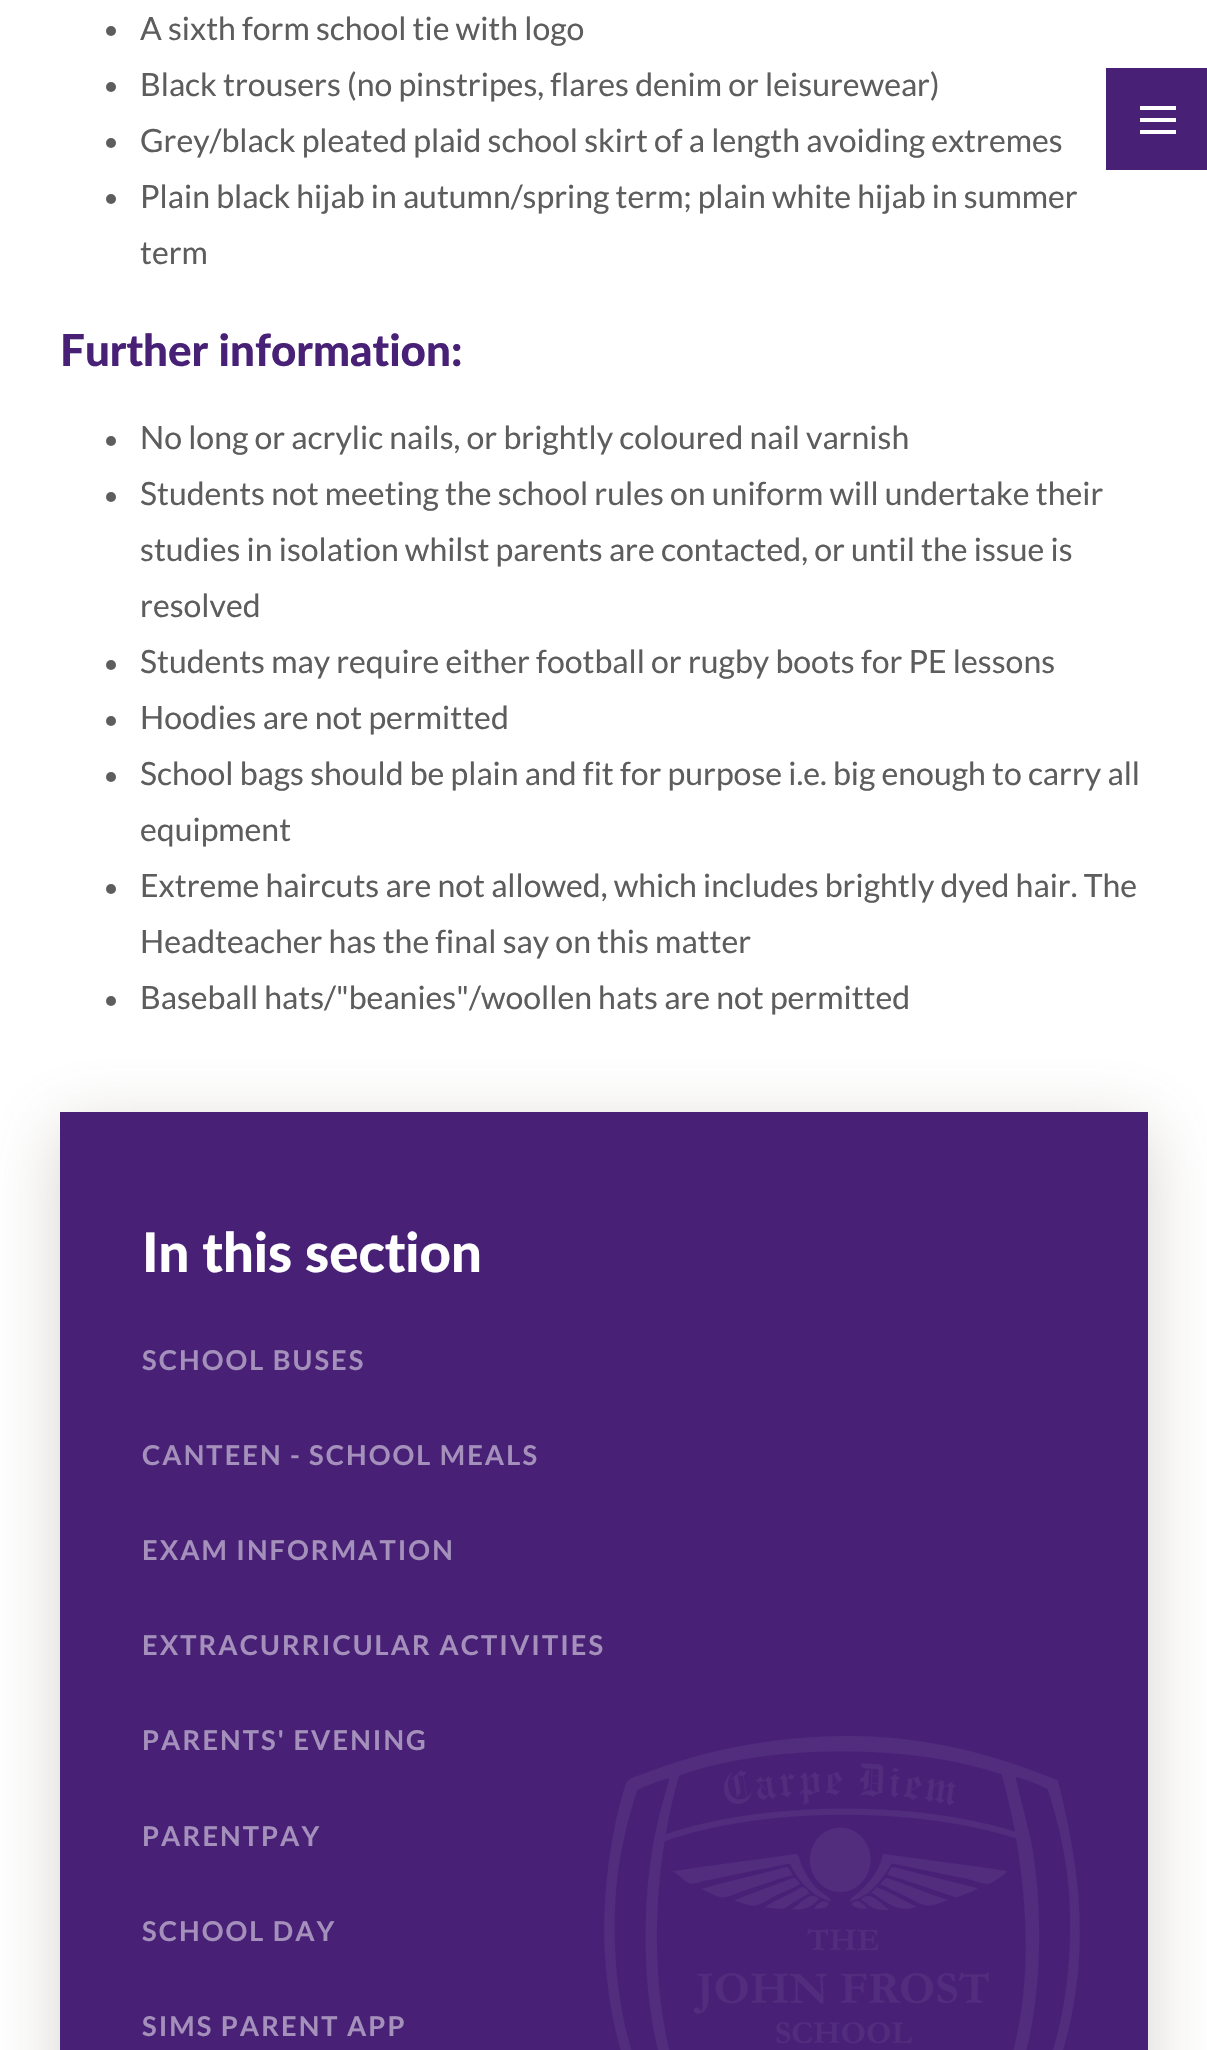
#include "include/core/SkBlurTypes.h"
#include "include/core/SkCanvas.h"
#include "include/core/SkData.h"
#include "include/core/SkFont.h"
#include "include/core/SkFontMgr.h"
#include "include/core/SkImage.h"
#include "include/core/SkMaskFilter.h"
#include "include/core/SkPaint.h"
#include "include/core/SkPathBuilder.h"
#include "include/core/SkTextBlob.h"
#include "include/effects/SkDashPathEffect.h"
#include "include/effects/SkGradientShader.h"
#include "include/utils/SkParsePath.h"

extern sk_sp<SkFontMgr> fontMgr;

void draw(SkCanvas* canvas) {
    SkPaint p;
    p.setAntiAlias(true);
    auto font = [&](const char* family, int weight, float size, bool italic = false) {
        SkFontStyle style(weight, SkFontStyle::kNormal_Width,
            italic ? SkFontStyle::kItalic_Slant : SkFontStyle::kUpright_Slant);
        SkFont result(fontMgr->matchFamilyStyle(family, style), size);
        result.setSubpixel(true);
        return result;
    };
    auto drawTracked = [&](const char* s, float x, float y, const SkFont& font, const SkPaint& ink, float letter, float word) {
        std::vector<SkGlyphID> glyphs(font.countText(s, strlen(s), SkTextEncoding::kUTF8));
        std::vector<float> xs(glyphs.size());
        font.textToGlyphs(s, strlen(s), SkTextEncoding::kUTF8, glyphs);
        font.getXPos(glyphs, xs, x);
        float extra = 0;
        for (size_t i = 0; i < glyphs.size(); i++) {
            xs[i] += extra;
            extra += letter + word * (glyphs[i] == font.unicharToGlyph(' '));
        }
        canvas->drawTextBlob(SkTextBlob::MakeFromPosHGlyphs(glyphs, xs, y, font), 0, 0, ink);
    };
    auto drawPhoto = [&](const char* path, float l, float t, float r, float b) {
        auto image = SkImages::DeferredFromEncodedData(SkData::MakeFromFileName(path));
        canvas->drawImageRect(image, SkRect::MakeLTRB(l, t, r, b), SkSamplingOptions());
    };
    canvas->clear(0xFFFFFFFF);
    p.setColor(0xFF5D5D5D);
    canvas->drawCircle(111, 31, 5, p);
    auto font1 = font("Lato", 400, 32);
    canvas->drawString("A sixth form school tie with logo", 140, 40, font1, p);
    canvas->drawCircle(111, 87, 5, p);
    canvas->drawString("Black trousers (no pinstripes, flares denim or leisurewear)", 140, 96, font1, p);
    canvas->drawCircle(111, 143, 5, p);
    canvas->drawString("Grey/black pleated plaid school skirt of a length avoiding extremes", 140, 152, font1, p);
    canvas->drawCircle(111, 199, 5, p);
    canvas->drawString("Plain black hijab in autumn/spring term; plain white hijab in summer", 140, 208, font1, p);
    canvas->drawString("term", 140, 264, font1, p);
    auto font2 = font("Lato", 900, 44);
    p.setColor(0xFF482177);
    canvas->drawString("Further information:", 60, 366, font2, p);
    p.setColor(0xFF5D5D5D);
    canvas->drawCircle(111, 441, 5, p);
    canvas->drawString("No long or acrylic nails, or brightly coloured nail varnish", 140, 449, font1, p);
    canvas->drawCircle(111, 497, 5, p);
    {
        const struct { const char* s; float x, y; } items[] = {
            {"Students not meeting the school rules on uniform will undertake their", 140, 505},
            {"studies in isolation whilst parents are contacted, or until the issue is", 140, 561},
            {"resolved", 140, 617},
        };
        for (auto [s, x, y] : items) {
            canvas->drawString(s, x, y, font1, p);
        }
    }
    canvas->drawCircle(111, 665, 5, p);
    canvas->drawString("Students may require either football or rugby boots for PE lessons", 140, 673, font1, p);
    canvas->drawCircle(111, 721, 5, p);
    canvas->drawString("Hoodies are not permitted", 140, 729, font1, p);
    canvas->drawCircle(111, 777, 5, p);
    canvas->drawString("School bags should be plain and fit for purpose i.e. big enough to carry all", 140, 785, font1, p);
    canvas->drawString("equipment", 140, 841, font1, p);
    canvas->drawCircle(111, 889, 5, p);
    canvas->drawString("Extreme haircuts are not allowed, which includes brightly dyed hair. The", 140, 897, font1, p);
    canvas->drawString("Headteacher has the final say on this matter", 140, 953, font1, p);
    canvas->drawCircle(111, 1001, 5, p);
    canvas->drawString("Baseball hats/\"beanies\"/woollen hats are not permitted", 140, 1009, font1, p);
    p.setColor(0x4D7F6F65);
    p.setMaskFilter(SkMaskFilter::MakeBlur(kNormal_SkBlurStyle, 32));
    canvas->drawRect(SkRect::MakeLTRB(60, 1128, 1148, 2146), p);
    p.setMaskFilter(nullptr);
    p.setColor(0xFF482177);
    canvas->drawRect(SkRect::MakeLTRB(60, 1112, 1148, 2050), p);
    auto font3 = font("Lato", 900, 54.5f);
    p.setColor(0xFFFFFFFF);
    canvas->drawString("In this section", 142, 1272, font3, p);
    auto font4 = font("Lato", 700, 27.25f);
    p.setColor(0xFFA490BB);
    {
        const struct { const char* s; float x, y; } items[] = {
            {"SCHOOL BUSES", 142, 1370},
            {"CANTEEN - SCHOOL MEALS", 142, 1465},
            {"EXAM INFORMATION", 142, 1560},
            {"EXTRACURRICULAR ACTIVITIES", 142, 1655},
            {"PARENTS' EVENING", 142, 1750},
            {"PARENTPAY", 142, 1846},
            {"SCHOOL DAY", 142, 1941},
            {"SIMS PARENT APP", 142, 2036},
        };
        for (auto [s, x, y] : items) {
            drawTracked(s, x, y, font4, p, 2.05f, 0);
        }
    }
    drawPhoto("media/1.png", 604, 1736, 1080, 2050);
    {
        const struct { float l, t, r, b; SkColor color; } items[] = {
            {1106, 68, 1207, 170, 0xFF482177},
            {1140, 106, 1176, 110, 0xFFFFFFFF},
            {1140, 118, 1176, 122, 0xFFFFFFFF},
            {1140, 130, 1176, 134, 0xFFFFFFFF},
        };
        for (auto [l, t, r, b, color] : items) {
            p.setColor(color);
            canvas->drawRect(SkRect::MakeLTRB(l, t, r, b), p);
        }
    }
}
